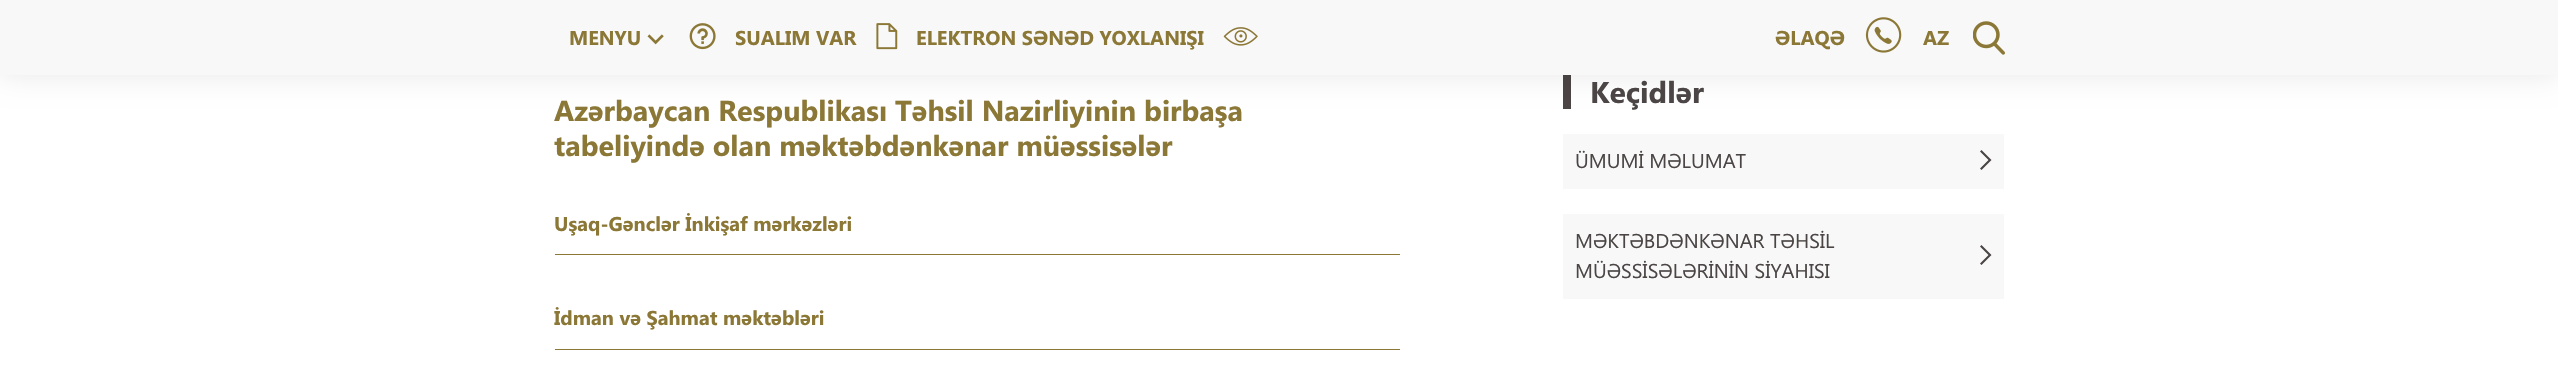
#include "include/core/SkBlurTypes.h"
#include "include/core/SkCanvas.h"
#include "include/core/SkData.h"
#include "include/core/SkFont.h"
#include "include/core/SkFontMgr.h"
#include "include/core/SkImage.h"
#include "include/core/SkMaskFilter.h"
#include "include/core/SkPaint.h"
#include "include/core/SkPathBuilder.h"
#include "include/core/SkTextBlob.h"
#include "include/effects/SkDashPathEffect.h"
#include "include/effects/SkGradientShader.h"
#include "include/utils/SkParsePath.h"

extern sk_sp<SkFontMgr> fontMgr;

void draw(SkCanvas* canvas) {
    SkPaint p;
    p.setAntiAlias(true);
    auto font = [&](const char* family, int weight, float size, bool italic = false) {
        SkFontStyle style(weight, SkFontStyle::kNormal_Width,
            italic ? SkFontStyle::kItalic_Slant : SkFontStyle::kUpright_Slant);
        SkFont result(fontMgr->matchFamilyStyle(family, style), size);
        result.setSubpixel(true);
        return result;
    };
    auto drawPhoto = [&](const char* path, float l, float t, float r, float b) {
        auto image = SkImages::DeferredFromEncodedData(SkData::MakeFromFileName(path));
        canvas->drawImageRect(image, SkRect::MakeLTRB(l, t, r, b), SkSamplingOptions());
    };
    canvas->clear(0xFFFFFFFF);
    p.setColor(0xFF4B4545);
    canvas->drawRect(SkRect::MakeLTRB(1563, 73, 1571, 109), p);
    p.setColor(0x17000000);
    p.setMaskFilter(SkMaskFilter::MakeBlur(kNormal_SkBlurStyle, 14.5f));
    canvas->drawRect(SkRect::MakeLTRB(0, 0, 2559, 75), p);
    p.setMaskFilter(nullptr);
    p.setColor(0xFFF8F8F8);
    canvas->drawRect(SkRect::MakeLTRB(0, 0, 2558, 75), p);
    auto font1 = font("Segoe UI", 700, 20);
    p.setColor(0xFF8B7736);
    canvas->drawString("MENYU", 569, 45, font1, p);
    drawPhoto("media/1.png", 647, 34, 664, 45);
    drawPhoto("media/2.png", 689, 23, 716, 50);
    canvas->drawString("SUALIM VAR", 735, 45, font1, p);
    drawPhoto("media/3.png", 876, 23, 898, 50);
    canvas->drawString("ELEKTRON SƏNƏD YOXLANIŞI", 916, 45, font1, p);
    drawPhoto("media/4.png", 1223, 27, 1258, 46);
    canvas->drawString("ƏLAQƏ", 1775, 45, font1, p);
    drawPhoto("media/5.png", 1865, 17, 1902, 53);
    canvas->drawString("AZ", 1923, 45, font1, p);
    drawPhoto("media/6.png", 1973, 21, 2005, 55);
    auto font2 = font("Segoe UI", 700, 28.75f);
    canvas->drawString("Azərbaycan Respublikası Təhsil Nazirliyinin birbaşa", 554, 121, font2, p);
    canvas->drawString("tabeliyində olan məktəbdənkənar müəssisələr", 554, 156, font2, p);
    canvas->drawRect(SkRect::MakeLTRB(555, 254, 1400, 255), p);
    canvas->drawString("Uşaq-Gənclər İnkişaf mərkəzləri", 554, 231, font1, p);
    canvas->drawRect(SkRect::MakeLTRB(555, 349, 1400, 350), p);
    canvas->drawString("İdman və Şahmat məktəbləri", 554, 325, font1, p);
    auto font3 = font("Segoe UI", 700, 30);
    p.setColor(0xFF4B4545);
    canvas->drawString("Keçidlər", 1590, 103, font3, p);
    p.setColor(0xFFF8F8F8);
    canvas->drawRect(SkRect::MakeLTRB(1563, 134, 2004, 189), p);
    auto font4 = font("Segoe UI", 400, 20);
    p.setColor(0xFF4B4545);
    canvas->drawString("ÜMUMİ MƏLUMAT", 1575, 168, font4, p);
    canvas->drawPath(SkPathBuilder().moveTo(1981.5f, 150).lineTo(1980, 151.5f).lineTo(1988.5f, 160).lineTo(1980, 168.5f).lineTo(1981.5f, 170).lineTo(1991.5f, 160).close().detach(), p);
    p.setColor(0xFFF8F8F8);
    canvas->drawRect(SkRect::MakeLTRB(1563, 214, 2004, 299), p);
    p.setColor(0xFF4B4545);
    canvas->drawString("MƏKTƏBDƏNKƏNAR TƏHSİL", 1575, 248, font4, p);
    canvas->drawPath(SkPathBuilder().moveTo(1981.5f, 245).lineTo(1980, 246.5f).lineTo(1988.5f, 255).lineTo(1980, 263.5f).lineTo(1981.5f, 265).lineTo(1991.5f, 255).close().detach(), p);
    canvas->drawString("MÜƏSSİSƏLƏRİNİN SİYAHISI", 1575, 278, font4, p);
}
